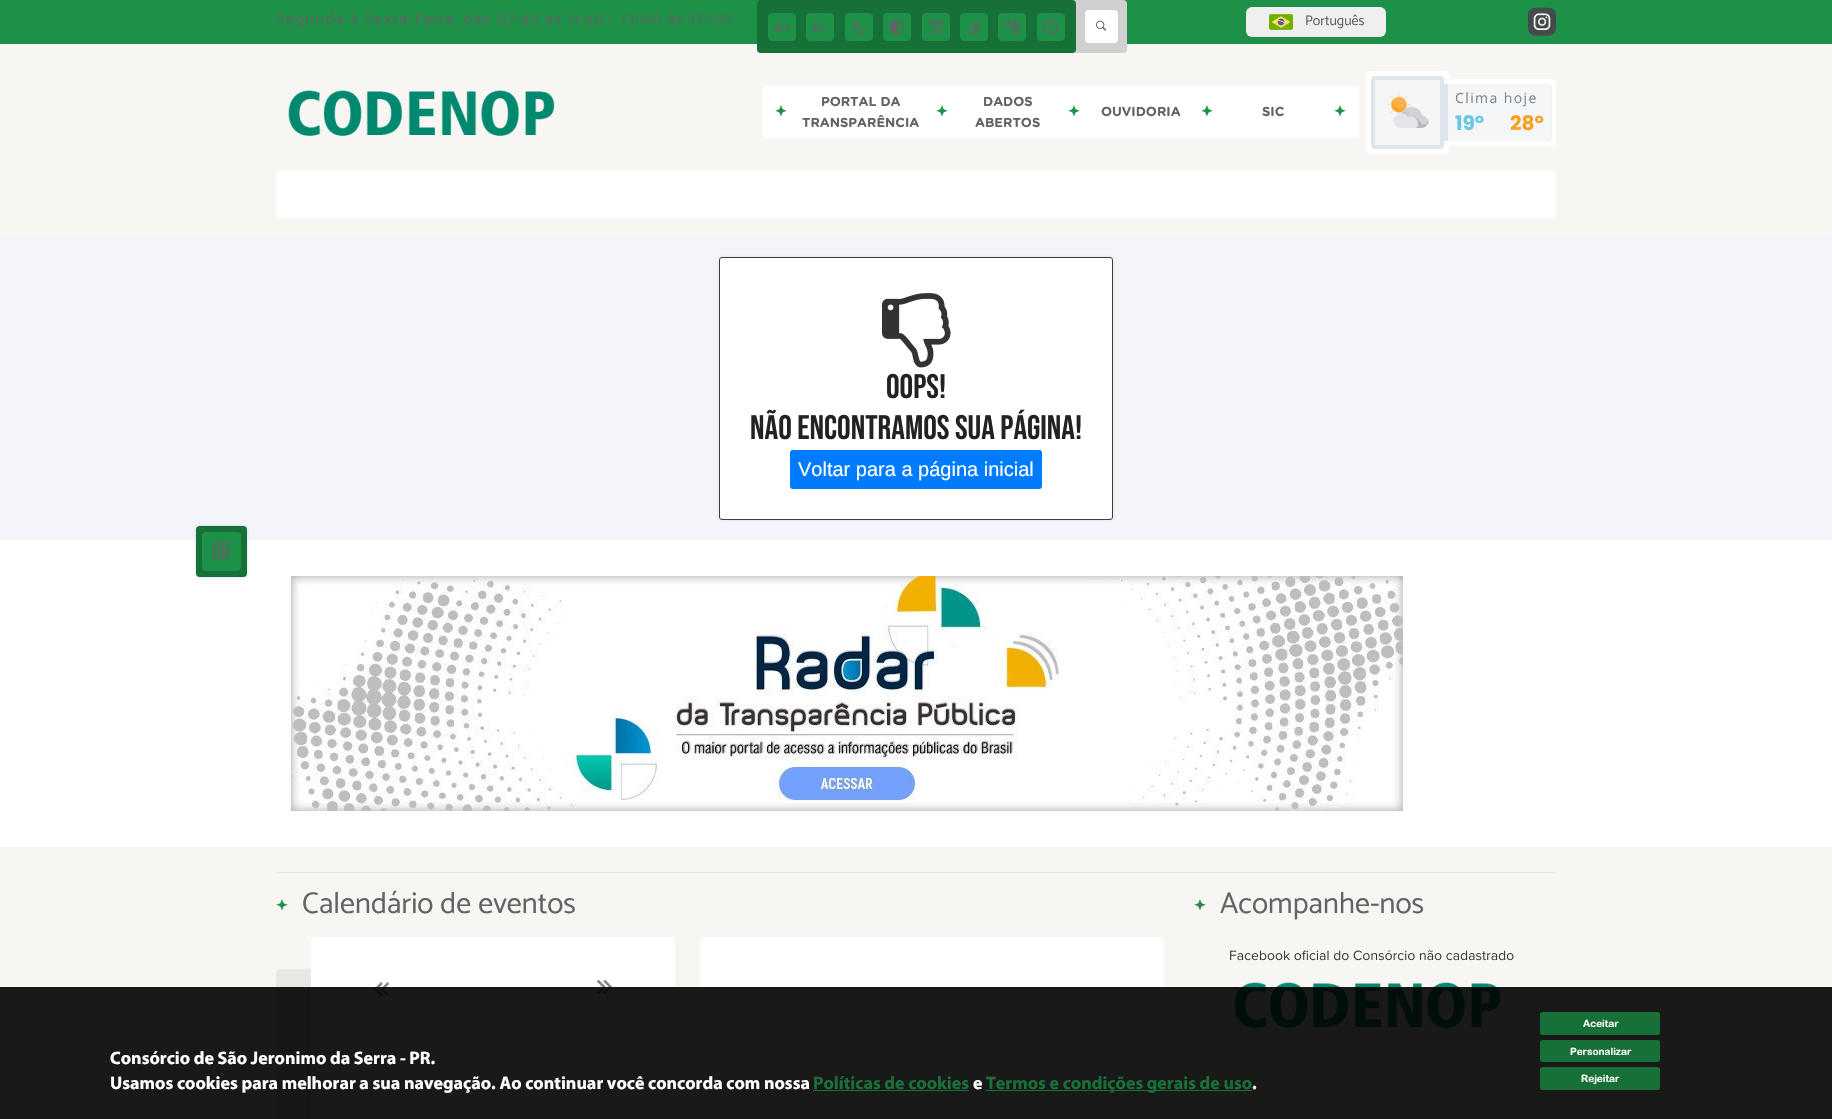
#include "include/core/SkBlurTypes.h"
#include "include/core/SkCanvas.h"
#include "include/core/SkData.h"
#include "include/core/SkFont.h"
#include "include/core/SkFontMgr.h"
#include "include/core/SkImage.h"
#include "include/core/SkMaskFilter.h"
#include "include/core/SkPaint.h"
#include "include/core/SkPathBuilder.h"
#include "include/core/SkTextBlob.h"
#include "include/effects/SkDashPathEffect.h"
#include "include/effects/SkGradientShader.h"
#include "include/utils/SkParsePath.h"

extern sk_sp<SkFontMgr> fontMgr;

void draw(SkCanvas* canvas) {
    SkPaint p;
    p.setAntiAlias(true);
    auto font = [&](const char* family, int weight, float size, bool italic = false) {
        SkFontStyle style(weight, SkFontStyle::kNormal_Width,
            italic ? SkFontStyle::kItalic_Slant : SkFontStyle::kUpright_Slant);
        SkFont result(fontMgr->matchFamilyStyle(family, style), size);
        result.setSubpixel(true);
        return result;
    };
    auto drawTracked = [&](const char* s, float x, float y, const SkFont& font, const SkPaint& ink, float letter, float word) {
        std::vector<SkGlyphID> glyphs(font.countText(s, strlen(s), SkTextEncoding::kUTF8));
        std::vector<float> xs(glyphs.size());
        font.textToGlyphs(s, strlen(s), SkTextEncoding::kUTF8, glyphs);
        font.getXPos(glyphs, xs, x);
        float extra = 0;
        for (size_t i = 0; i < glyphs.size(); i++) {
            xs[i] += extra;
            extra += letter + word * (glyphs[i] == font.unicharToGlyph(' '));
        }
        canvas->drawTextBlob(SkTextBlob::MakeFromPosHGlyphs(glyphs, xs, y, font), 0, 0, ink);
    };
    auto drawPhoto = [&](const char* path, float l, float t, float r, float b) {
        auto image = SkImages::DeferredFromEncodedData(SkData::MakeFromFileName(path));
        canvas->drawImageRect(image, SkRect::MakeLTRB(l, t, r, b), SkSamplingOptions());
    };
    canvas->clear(0xFFF7F6F2);
    p.setColor(0xFF1D9148);
    canvas->drawRect(SkRect::MakeLTRB(0, 0, 1832, 44), p);
    p.setColor(0xFFD0D0D0);
    canvas->drawRoundRect(SkRect::MakeLTRB(808, 0, 1127, 53), 4, 4, p);
    p.setColor(0xFF167038);
    canvas->drawRoundRect(SkRect::MakeLTRB(757, 0, 1076, 53), 4, 4, p);
    canvas->save();
    canvas->clipPath(SkPathBuilder().moveTo(771, 13).lineTo(793, 13).cubicTo(794.5f, 13, 796, 14.5f, 796, 16).lineTo(796, 38).cubicTo(796, 39.5f, 794.5f, 41, 793, 41).lineTo(771, 41).cubicTo(769.5f, 41, 768, 39.5f, 768, 38).lineTo(768, 16).cubicTo(768, 14.5f, 769.5f, 13, 771, 13).close().detach(), true);
    p.setColor(0xFF1D9148);
    canvas->drawRoundRect(SkRect::MakeLTRB(768, 13, 796, 41), 4, 4, p);
    canvas->restore();
    drawPhoto("media/1.png", 773, 21, 790, 33);
    canvas->save();
    canvas->clipPath(SkPathBuilder().moveTo(809, 13).lineTo(831, 13).cubicTo(832.5f, 13, 834, 14.5f, 834, 16).lineTo(834, 38).cubicTo(834, 39.5f, 832.5f, 41, 831, 41).lineTo(809, 41).cubicTo(807.5f, 41, 806, 39.5f, 806, 38).lineTo(806, 16).cubicTo(806, 14.5f, 807.5f, 13, 809, 13).close().detach(), true);
    canvas->drawRoundRect(SkRect::MakeLTRB(806, 13, 834, 41), 4, 4, p);
    canvas->restore();
    drawPhoto("media/2.png", 811, 21, 828, 33);
    canvas->save();
    canvas->clipPath(SkPathBuilder().moveTo(848, 13).lineTo(870, 13).cubicTo(871.5f, 13, 873, 14.5f, 873, 16).lineTo(873, 38).cubicTo(873, 39.5f, 871.5f, 41, 870, 41).lineTo(848, 41).cubicTo(846.5f, 41, 845, 39.5f, 845, 38).lineTo(845, 16).cubicTo(845, 14.5f, 846.5f, 13, 848, 13).close().detach(), true);
    canvas->drawRoundRect(SkRect::MakeLTRB(845, 13, 873, 41), 4, 4, p);
    canvas->restore();
    drawPhoto("media/3.png", 851, 20, 867, 35);
    canvas->save();
    canvas->clipPath(SkPathBuilder().moveTo(886, 13).lineTo(908, 13).cubicTo(909.5f, 13, 911, 14.5f, 911, 16).lineTo(911, 38).cubicTo(911, 39.5f, 909.5f, 41, 908, 41).lineTo(886, 41).cubicTo(884.5f, 41, 883, 39.5f, 883, 38).lineTo(883, 16).cubicTo(883, 14.5f, 884.5f, 13, 886, 13).close().detach(), true);
    canvas->drawRoundRect(SkRect::MakeLTRB(883, 13, 911, 41), 4, 4, p);
    canvas->restore();
    drawPhoto("media/4.png", 889, 19, 905, 35);
    canvas->save();
    canvas->clipPath(SkPathBuilder().moveTo(925, 13).lineTo(947, 13).cubicTo(948.5f, 13, 950, 14.5f, 950, 16).lineTo(950, 38).cubicTo(950, 39.5f, 948.5f, 41, 947, 41).lineTo(925, 41).cubicTo(923.5f, 41, 922, 39.5f, 922, 38).lineTo(922, 16).cubicTo(922, 14.5f, 923.5f, 13, 925, 13).close().detach(), true);
    canvas->drawRoundRect(SkRect::MakeLTRB(922, 13, 950, 41), 4, 4, p);
    canvas->restore();
    drawPhoto("media/5.png", 927, 19, 943, 35);
    canvas->save();
    canvas->clipPath(SkPathBuilder().moveTo(963, 13).lineTo(985, 13).cubicTo(986.5f, 13, 988, 14.5f, 988, 16).lineTo(988, 38).cubicTo(988, 39.5f, 986.5f, 41, 985, 41).lineTo(963, 41).cubicTo(961.5f, 41, 960, 39.5f, 960, 38).lineTo(960, 16).cubicTo(960, 14.5f, 961.5f, 13, 963, 13).close().detach(), true);
    canvas->drawRoundRect(SkRect::MakeLTRB(960, 13, 988, 41), 4, 4, p);
    canvas->restore();
    drawPhoto("media/6.png", 968, 20, 980, 35);
    canvas->save();
    canvas->clipPath(SkPathBuilder().moveTo(1001, 13).lineTo(1023, 13).cubicTo(1024.5f, 13, 1026, 14.5f, 1026, 16).lineTo(1026, 38).cubicTo(1026, 39.5f, 1024.5f, 41, 1023, 41).lineTo(1001, 41).cubicTo(999.5f, 41, 998, 39.5f, 998, 38).lineTo(998, 16).cubicTo(998, 14.5f, 999.5f, 13, 1001, 13).close().detach(), true);
    canvas->drawRoundRect(SkRect::MakeLTRB(998, 13, 1026, 41), 4, 4, p);
    canvas->restore();
    drawPhoto("media/7.png", 1004, 20, 1020, 34);
    canvas->save();
    canvas->clipPath(SkPathBuilder().moveTo(1040, 13).lineTo(1062, 13).cubicTo(1063.5f, 13, 1065, 14.5f, 1065, 16).lineTo(1065, 38).cubicTo(1065, 39.5f, 1063.5f, 41, 1062, 41).lineTo(1040, 41).cubicTo(1038.5f, 41, 1037, 39.5f, 1037, 38).lineTo(1037, 16).cubicTo(1037, 14.5f, 1038.5f, 13, 1040, 13).close().detach(), true);
    canvas->drawRoundRect(SkRect::MakeLTRB(1037, 13, 1065, 41), 4, 4, p);
    canvas->restore();
    drawPhoto("media/8.png", 1043, 19, 1059, 35);
    auto font1 = font("Catamaran", 400, 16.5f);
    p.setColor(0xFF606466);
    drawTracked("Segunda à Sexta-Feira, das 07:45 às 11:45 - 13:00 às 17:00.", 276, 24, font1, p, 1.3f, 0);
    p.setColor(0xFFFFFFFF);
    canvas->drawRoundRect(SkRect::MakeLTRB(1085, 10, 1118, 43), 4, 4, p);
    drawPhoto("media/9.png", 1096, 20, 1107, 31);
    p.setColor(0xFFEFEFEF);
    canvas->drawRoundRect(SkRect::MakeLTRB(1246, 7, 1386, 37), 6, 6, p);
    drawPhoto("media/10.png", 1269, 14, 1293, 30);
    auto font2 = font("Catamaran", 400, 14);
    p.setColor(0xFF606466);
    canvas->drawString("Português", 1305, 25, font2, p);
    {
        const SkColor colors[] = {0xFFFFFFFF, 0xFF1D9148};
        const float stops[] = {0.6f, 0.65f};
        p.setShader(SkGradientShader::MakeRadial({1542, 22}, 20, colors, stops, 2, SkTileMode::kClamp));
        p.setAlpha(255);
    }
    canvas->drawRoundRect(SkRect::MakeLTRB(1528, 8, 1556, 36), 4, 4, p);
    drawPhoto("media/11.png", 1528, 7, 1556, 36);
    drawPhoto("media/12.png", 288, 90, 555, 136);
    p.setShader(nullptr);
    p.setColor(0xFFFFFFFF);
    canvas->drawRoundRect(SkRect::MakeLTRB(762, 86, 1359, 138), 4, 4, p);
    drawPhoto("media/13.png", 775, 105, 787, 117);
    auto font3 = font("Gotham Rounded", 700, 13);
    p.setColor(0xFF606466);
    canvas->drawString("PORTAL DA", 821, 106, font3, p);
    canvas->drawString("TRANSPARÊNCIA", 802, 127, font3, p);
    drawPhoto("media/13.png", 936, 105, 948, 117);
    canvas->drawString("DADOS", 983, 106, font3, p);
    canvas->drawString("ABERTOS", 975, 127, font3, p);
    drawPhoto("media/13.png", 1068, 105, 1080, 117);
    canvas->drawString("OUVIDORIA", 1101, 116, font3, p);
    drawPhoto("media/13.png", 1201, 105, 1213, 117);
    canvas->drawString("SIC", 1262, 116, font3, p);
    drawPhoto("media/13.png", 1334, 105, 1346, 117);
    p.setColor(0xFFFFFFFF);
    canvas->drawRoundRect(SkRect::MakeLTRB(1368.5f, 73.5f, 1446.5f, 151.5f), 1.5f, 1.5f, p);
    p.setStyle(SkPaint::kStroke_Style);
    p.setStrokeWidth(5);
    canvas->drawRoundRect(SkRect::MakeLTRB(1368.5f, 73.5f, 1446.5f, 151.5f), 1.5f, 1.5f, p);
    p.setStyle(SkPaint::kFill_Style);
    p.setColor(0xFFF4F6F8);
    canvas->drawRoundRect(SkRect::MakeLTRB(1373, 78, 1442, 147), 2, 2, p);
    p.setStyle(SkPaint::kStroke_Style);
    p.setStrokeWidth(4);
    p.setColor(0xFFDDE6EB);
    canvas->drawRoundRect(SkRect::MakeLTRB(1373, 78, 1442, 147), 2, 2, p);
    drawPhoto("media/14.png", 1386, 92, 1429, 128);
    p.setStyle(SkPaint::kFill_Style);
    p.setColor(0xFFFFFFFF);
    canvas->drawPath(SkPathBuilder().moveTo(1451.5f, 81.5f).lineTo(1552, 81.5f).cubicTo(1553, 81.5f, 1553.5f, 82, 1553.5f, 83).lineTo(1553.5f, 142).cubicTo(1553.5f, 143, 1553, 143.5f, 1552, 143.5f).lineTo(1451.5f, 143.5f).close().detach(), p);
    p.setStyle(SkPaint::kStroke_Style);
    p.setStrokeWidth(5);
    canvas->drawPath(SkPathBuilder().moveTo(1451.5f, 81.5f).lineTo(1552, 81.5f).cubicTo(1553, 81.5f, 1553.5f, 82, 1553.5f, 83).lineTo(1553.5f, 142).cubicTo(1553.5f, 143, 1553, 143.5f, 1552, 143.5f).lineTo(1451.5f, 143.5f).close().detach(), p);
    p.setStyle(SkPaint::kFill_Style);
    p.setColor(0xFFECEEF0);
    p.setMaskFilter(SkMaskFilter::MakeBlur(kNormal_SkBlurStyle, 0.5f));
    canvas->drawRoundRect(SkRect::MakeLTRB(1445, 84, 1552, 141), 4, 4, p);
    p.setMaskFilter(nullptr);
    p.setColor(0xFFF4F6F8);
    canvas->drawPath(SkPathBuilder().moveTo(1444, 84).lineTo(1547, 84).cubicTo(1549, 84, 1551, 86, 1551, 88).lineTo(1551, 137).cubicTo(1551, 139, 1549, 141, 1547, 141).lineTo(1444, 141).close().detach(), p);
    p.setColor(0xFFDDE6EB);
    canvas->drawRect(SkRect::MakeLTRB(1444, 84, 1448, 141), p);
    auto font4 = font("Open Sans", 400, 14);
    p.setColor(0xFF81878B);
    drawTracked("Clima hoje", 1455, 103, font4, p, 1.4f, 0);
    auto font5 = font("Poppins", 700, 20);
    p.setColor(0xFF66C8E4);
    canvas->drawString("19°", 1455, 130, font5, p);
    p.setColor(0xFFFCA022);
    canvas->drawString("28°", 1510, 130, font5, p);
    p.setColor(0xFFFFFFFF);
    canvas->drawRoundRect(SkRect::MakeLTRB(276, 170, 1556, 219), 4, 4, p);
    p.setColor(0xFFF4F5FA);
    canvas->drawRect(SkRect::MakeLTRB(0, 237, 1832, 540), p);
    p.setColor(0x1A000000);
    p.setMaskFilter(SkMaskFilter::MakeBlur(kNormal_SkBlurStyle, 1.5f));
    canvas->drawRoundRect(SkRect::MakeLTRB(719, 257, 1113, 520), 3, 3, p);
    p.setMaskFilter(nullptr);
    p.setColor(0xFFFFFFFF);
    canvas->drawRoundRect(SkRect::MakeLTRB(719.5f, 257.5f, 1112.5f, 519.5f), 2.5f, 2.5f, p);
    p.setStyle(SkPaint::kStroke_Style);
    p.setStrokeWidth(1);
    p.setColor(0xFF3E3E3E);
    canvas->drawRoundRect(SkRect::MakeLTRB(719.5f, 257.5f, 1112.5f, 519.5f), 2.5f, 2.5f, p);
    drawPhoto("media/15.png", 882, 293, 951, 368);
    auto font6 = font("Bebas Neue", 400, 34);
    p.setStyle(SkPaint::kFill_Style);
    p.setColor(0xFF222222);
    canvas->drawString("Oops!", 886, 398, font6, p);
    canvas->drawString("Não encontramos sua página!", 750, 439, font6, p);
    p.setColor(0xFF007BFF);
    canvas->drawRoundRect(SkRect::MakeLTRB(790.5f, 450.5f, 1041.5f, 488.5f), 2, 2, p);
    p.setStyle(SkPaint::kStroke_Style);
    canvas->drawRoundRect(SkRect::MakeLTRB(790.5f, 450.5f, 1041.5f, 488.5f), 2, 2, p);
    auto font7 = font("Liberation Sans", 400, 20);
    p.setStyle(SkPaint::kFill_Style);
    p.setColor(0xFFFFFFFF);
    canvas->drawString("Voltar para a página inicial", 798, 476, font7, p);
    canvas->drawRect(SkRect::MakeLTRB(0, 540, 1832, 847), p);
    drawPhoto("media/16.png", 291, 576, 1403, 811);
    p.setColor(0xFFE8E7E3);
    canvas->drawRect(SkRect::MakeLTRB(276, 872, 1556, 873), p);
    drawPhoto("media/17.png", 276, 899, 288, 911);
    auto font8 = font("Catamaran", 400, 30);
    p.setColor(0xFF606466);
    canvas->drawString("Calendário de eventos", 302, 913, font8, p);
    p.setColor(0xFFE8E7E3);
    canvas->drawPath(SkPathBuilder().moveTo(280, 969).cubicTo(278, 969, 276, 971, 276, 973).lineTo(276, 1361).cubicTo(276, 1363, 278, 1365, 280, 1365).lineTo(636, 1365).cubicTo(638, 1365, 640, 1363, 640, 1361).lineTo(640, 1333).lineTo(315, 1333).cubicTo(313, 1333, 311, 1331, 311, 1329).lineTo(311, 969).close().detach(), p);
    p.setColor(0xFFFFFFFF);
    canvas->drawRoundRect(SkRect::MakeLTRB(311, 937, 675, 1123), 4, 4, p);
    drawPhoto("media/18.png", 374, 982, 389, 997);
    drawPhoto("media/19.png", 597, 979, 612, 994);
    canvas->drawRoundRect(SkRect::MakeLTRB(700, 937, 1164, 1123), 4, 4, p);
    drawPhoto("media/17.png", 1194, 899, 1206, 911);
    p.setColor(0xFF606466);
    canvas->drawString("Acompanhe-nos", 1220, 913, font8, p);
    drawPhoto("media/20.png", 1230, 950, 1514, 961);
    drawPhoto("media/12.png", 1234, 982, 1501, 1028);
    p.setColor(0xE6000000);
    canvas->drawRect(SkRect::MakeLTRB(0, 987, 1832, 1119), p);
    auto font9 = font("Myriad", 700, 18);
    p.setColor(0xFFFFFFFF);
    canvas->drawString("Consórcio de São Jeronimo da Serra - PR.", 110, 1064, font9, p);
    canvas->drawString("Usamos cookies para melhorar a sua navegação. Ao continuar você concorda com nossa", 110, 1089, font9, p);
    p.setColor(0xFF167038);
    canvas->drawString("Políticas de cookies", 813, 1089, font9, p);
    canvas->drawRect(SkRect::MakeLTRB(813, 1090, 969, 1091), p);
    p.setColor(0xFFFFFFFF);
    canvas->drawString("e", 973, 1089, font9, p);
    p.setColor(0xFF167038);
    canvas->drawRect(SkRect::MakeLTRB(986, 1090, 1252, 1091), p);
    canvas->drawString("Termos e condições gerais de uso", 986, 1089, font9, p);
    p.setColor(0xFFFFFFFF);
    canvas->drawString(".", 1252, 1089, font9, p);
    p.setColor(0xFF167038);
    canvas->drawRoundRect(SkRect::MakeLTRB(1540, 1012, 1660, 1035), 2.5f, 2.5f, p);
    auto font10 = font("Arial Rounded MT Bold", 700, 10);
    p.setColor(0xFFFFFFFF);
    canvas->drawString("Aceitar", 1583, 1027, font10, p);
    p.setColor(0xFF167038);
    canvas->drawRoundRect(SkRect::MakeLTRB(1540, 1040, 1660, 1062), 2.5f, 2.5f, p);
    p.setColor(0xFFFFFFFF);
    canvas->drawString("Personalizar", 1570, 1055, font10, p);
    p.setColor(0xFF167038);
    canvas->drawRoundRect(SkRect::MakeLTRB(1540, 1067, 1660, 1090), 2.5f, 2.5f, p);
    p.setColor(0xFFFFFFFF);
    canvas->drawString("Rejeitar", 1581, 1082, font10, p);
    p.setColor(0xFFCBD0D6);
    p.setMaskFilter(SkMaskFilter::MakeBlur(kNormal_SkBlurStyle, 1.5f));
    canvas->drawRoundRect(SkRect::MakeLTRB(196, 526, 247, 577), 4, 4, p);
    p.setMaskFilter(nullptr);
    p.setColor(0xFF167038);
    canvas->drawRoundRect(SkRect::MakeLTRB(196, 526, 247, 577), 4, 4, p);
    p.setColor(0xFF1D9148);
    canvas->drawRoundRect(SkRect::MakeLTRB(202, 532, 241, 571), 4, 4, p);
    drawPhoto("media/21.png", 213, 542, 230, 559);
}
